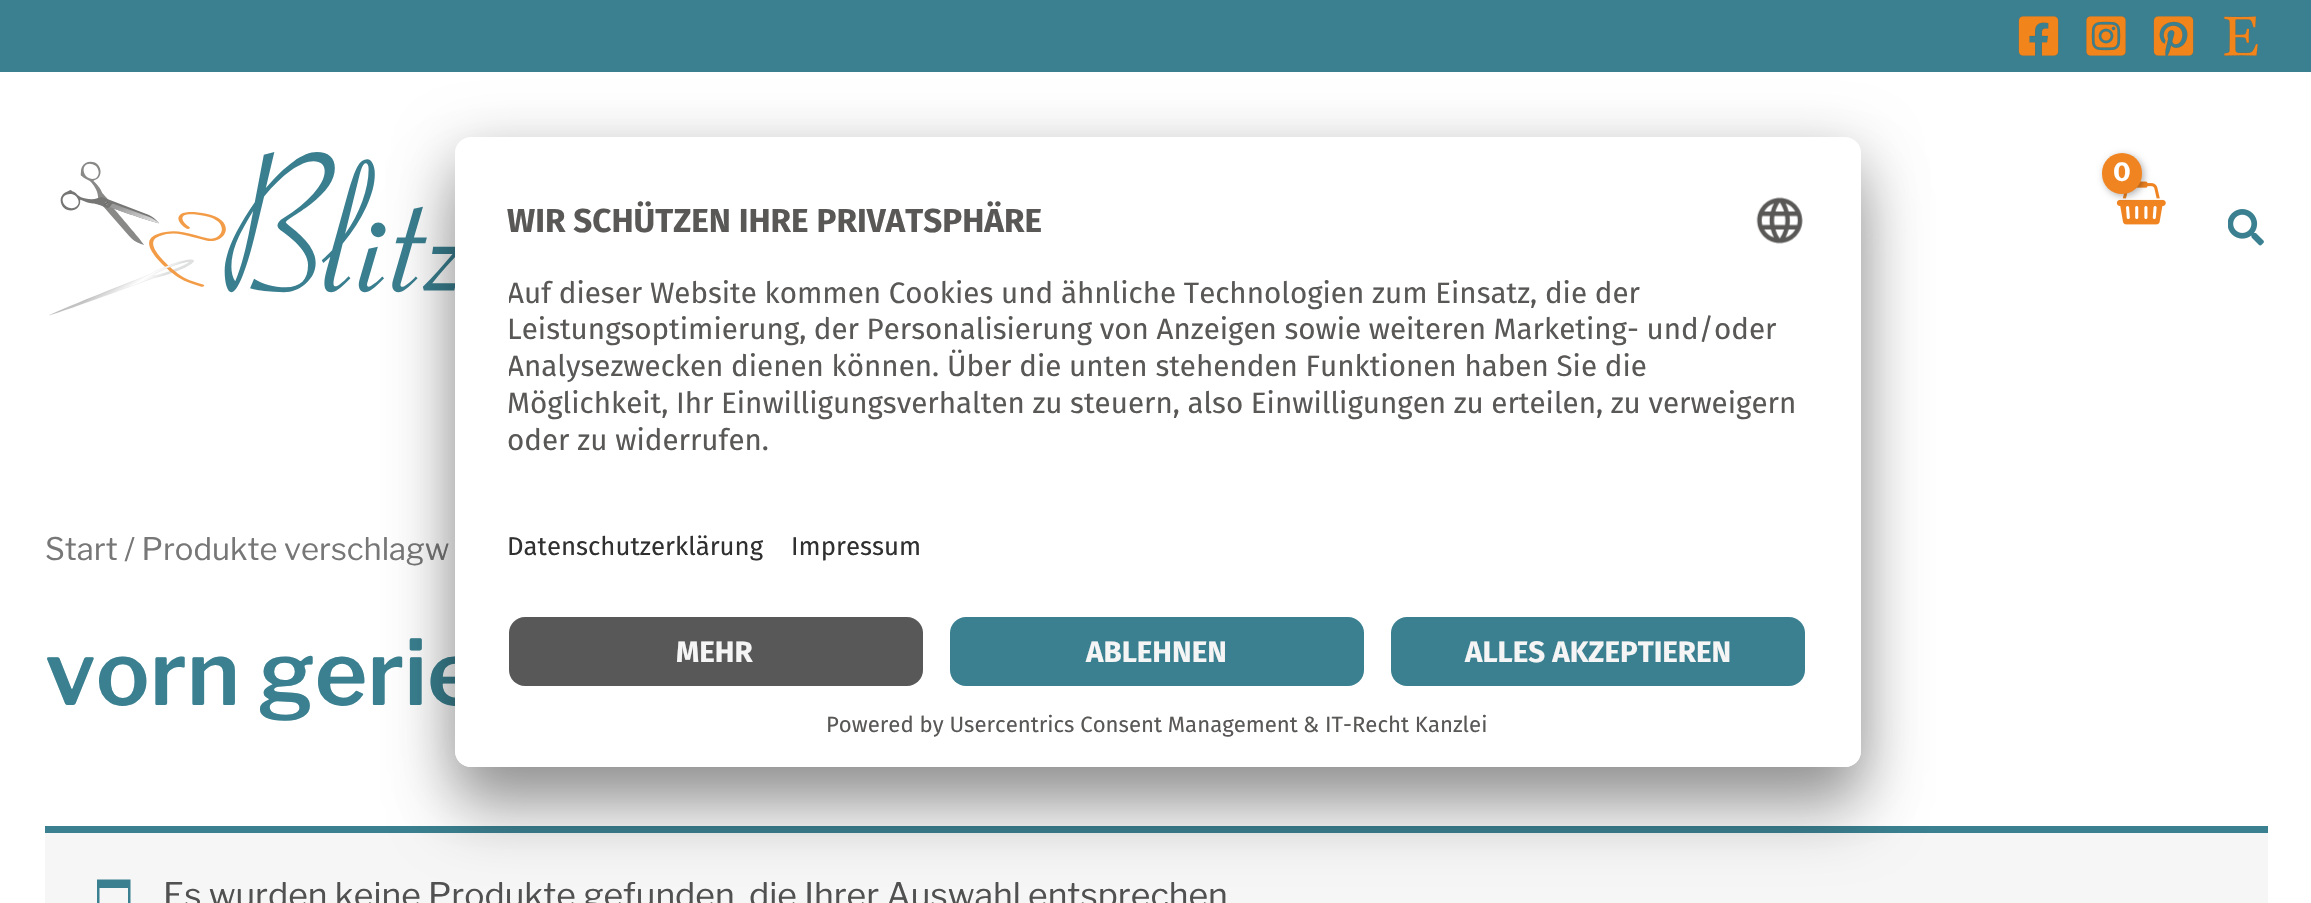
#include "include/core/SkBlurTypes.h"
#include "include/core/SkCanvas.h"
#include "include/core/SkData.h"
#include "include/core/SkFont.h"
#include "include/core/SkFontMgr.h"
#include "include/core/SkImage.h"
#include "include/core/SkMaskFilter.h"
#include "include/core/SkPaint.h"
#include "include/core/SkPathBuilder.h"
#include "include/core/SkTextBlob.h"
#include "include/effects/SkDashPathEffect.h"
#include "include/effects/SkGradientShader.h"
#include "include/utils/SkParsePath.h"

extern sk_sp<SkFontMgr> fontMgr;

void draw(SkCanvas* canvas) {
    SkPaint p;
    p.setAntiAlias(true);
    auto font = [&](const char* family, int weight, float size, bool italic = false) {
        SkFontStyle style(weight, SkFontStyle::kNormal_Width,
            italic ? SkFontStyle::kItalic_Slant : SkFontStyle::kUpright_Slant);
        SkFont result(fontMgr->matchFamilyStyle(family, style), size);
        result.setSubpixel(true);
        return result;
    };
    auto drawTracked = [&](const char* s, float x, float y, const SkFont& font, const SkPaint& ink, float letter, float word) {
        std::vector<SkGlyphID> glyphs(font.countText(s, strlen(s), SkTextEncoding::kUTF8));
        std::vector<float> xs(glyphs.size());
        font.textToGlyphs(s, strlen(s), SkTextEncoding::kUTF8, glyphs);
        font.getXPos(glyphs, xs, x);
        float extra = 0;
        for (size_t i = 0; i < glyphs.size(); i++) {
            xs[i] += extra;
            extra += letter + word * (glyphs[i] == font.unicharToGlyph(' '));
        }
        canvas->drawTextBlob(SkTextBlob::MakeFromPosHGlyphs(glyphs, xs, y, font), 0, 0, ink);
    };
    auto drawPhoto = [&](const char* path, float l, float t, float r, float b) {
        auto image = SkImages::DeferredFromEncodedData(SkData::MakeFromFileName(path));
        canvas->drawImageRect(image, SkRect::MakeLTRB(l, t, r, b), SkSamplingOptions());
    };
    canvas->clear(0xFFFFFFFF);
    p.setColor(0xFF3A8090);
    canvas->drawRect(SkRect::MakeLTRB(0, 0, 2311, 72), p);
    drawPhoto("media/1.png", 2018, 16, 2059, 56);
    drawPhoto("media/2.png", 2086, 16, 2126, 56);
    drawPhoto("media/3.png", 2153, 16, 2194, 56);
    drawPhoto("media/4.png", 2224, 16, 2258, 56);
    drawPhoto("media/5.png", 49, 152, 455, 316);
    drawPhoto("media/6.png", 2116, 181, 2166, 225);
    p.setColor(0x4D000000);
    p.setMaskFilter(SkMaskFilter::MakeBlur(kNormal_SkBlurStyle, 3.5f));
    canvas->drawRoundRect(SkRect::MakeLTRB(2104, 155, 2144, 196), 20, 20, p);
    p.setMaskFilter(nullptr);
    p.setColor(0xFFF08421);
    canvas->drawRoundRect(SkRect::MakeLTRB(2102, 153, 2142, 194), 20, 20, p);
    auto font1 = font("Libre Franklin", 700, 25);
    p.setColor(0xFFFFFFFF);
    drawTracked("0", 2113, 181, font1, p, -1, 0);
    drawPhoto("media/7.png", 2228, 209, 2264, 246);
    auto font2 = font("Libre Franklin", 400, 31);
    p.setColor(0xFF777777);
    canvas->drawString("Start / Produkte verschlagw", 45, 560, font2, p);
    auto font3 = font("Libre Franklin", 600, 90);
    p.setColor(0xFF3A8090);
    canvas->drawString("vorn gerie", 45, 705, font3, p);
    p.setColor(0xFFF7F6F7);
    canvas->drawRect(SkRect::MakeLTRB(45, 833, 2268, 903), p);
    p.setColor(0xFF3A8090);
    canvas->drawRect(SkRect::MakeLTRB(45, 826, 2268, 833), p);
    canvas->drawPath(SkPathBuilder().moveTo(128, 888).lineTo(99.5f, 888).lineTo(99.5f, 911).lineTo(128, 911).close().moveTo(130.5f, 879.5f).lineTo(130.5f, 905.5f).cubicTo(130.5f, 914, 131, 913.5f, 123, 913.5f).lineTo(97, 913.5f).lineTo(97, 879.5f).close().detach(), p);
    auto font4 = font("Libre Franklin", 400, 33.75f);
    p.setColor(0xFF515151);
    canvas->drawString("Es wurden keine Produkte gefunden, die Ihrer Auswahl entsprechen", 163, 907, font4, p);
    p.setColor(0x4D000000);
    p.setMaskFilter(SkMaskFilter::MakeBlur(kNormal_SkBlurStyle, 31.5f));
    canvas->drawRoundRect(SkRect::MakeLTRB(455, 182, 1861, 812), 16, 16, p);
    p.setMaskFilter(nullptr);
    p.setColor(0x38000000);
    p.setMaskFilter(SkMaskFilter::MakeBlur(kNormal_SkBlurStyle, 29));
    canvas->drawRoundRect(SkRect::MakeLTRB(455, 149, 1861, 779), 16, 16, p);
    p.setMaskFilter(nullptr);
    p.setColor(0xFFFFFFFF);
    canvas->drawRoundRect(SkRect::MakeLTRB(455, 137, 1861, 767), 16, 16, p);
    canvas->save();
    canvas->clipPath(SkPathBuilder().moveTo(471, 137).lineTo(1845, 137).cubicTo(1854, 137, 1861, 144, 1861, 153).lineTo(1861, 751).cubicTo(1861, 760, 1854, 767, 1845, 767).lineTo(471, 767).cubicTo(462, 767, 455, 760, 455, 751).lineTo(455, 153).cubicTo(455, 144, 462, 137, 471, 137).close().detach(), true);
    canvas->clipPath(SkPathBuilder().moveTo(471, 137).lineTo(1845, 137).cubicTo(1854, 137, 1861, 144, 1861, 153).lineTo(1861, 599).lineTo(455, 599).lineTo(455, 153).cubicTo(455, 144, 462, 137, 471, 137).close().detach(), true);
    canvas->drawRect(SkRect::MakeLTRB(455, 140, 1861, 599), p);
    canvas->restore();
    auto font5 = font("Fira Sans", 700, 33.25f);
    p.setColor(0xFF595857);
    canvas->drawString("WIR SCHÜTZEN IHRE PRIVATSPHÄRE", 507, 232, font5, p);
    drawPhoto("media/8.png", 1756, 197, 1803, 244);
    canvas->save();
    canvas->clipRect(SkRect::MakeLTRB(509, 266, 1807, 468));
    auto font6 = font("Fira Sans", 400, 29.55f);
    drawTracked("Auf dieser Website kommen Cookies und ähnliche Technologien zum Einsatz, die der", 507, 303, font6, p, 0, -0.1f);
    canvas->restore();
    drawTracked("Leistungsoptimierung, der Personalisierung von Anzeigen sowie weiteren Marketing- und/oder", 507, 339, font6, p, 0, -0.25f);
    canvas->save();
    canvas->clipRect(SkRect::MakeLTRB(509, 266, 1807, 468));
    drawTracked("Analysezwecken dienen können. Über die unten stehenden Funktionen haben Sie die", 507, 376, font6, p, 0, -0.1f);
    canvas->restore();
    drawTracked("Möglichkeit, Ihr Einwilligungsverhalten zu steuern, also Einwilligungen zu erteilen, zu verweigern", 507, 413, font6, p, 0, -0.25f);
    canvas->drawString("oder zu widerrufen.", 507, 450, font6, p);
    auto font7 = font("Fira Sans", 400, 25.75f);
    p.setColor(0xFF303030);
    canvas->drawString("Datenschutzerklärung", 507, 555, font7, p);
    canvas->drawString("Impressum", 791, 555, font7, p);
    p.setColor(0xFFFFFFFF);
    canvas->drawPath(SkPathBuilder().moveTo(455, 599).lineTo(1861, 599).lineTo(1861, 751).cubicTo(1861, 760, 1854, 767, 1845, 767).lineTo(471, 767).cubicTo(462, 767, 455, 760, 455, 751).close().detach(), p);
    p.setColor(0xFF585858);
    canvas->drawRoundRect(SkRect::MakeLTRB(509, 617, 923, 686), 16, 16, p);
    auto font8 = font("Fira Sans", 700, 29.55f);
    p.setColor(0xFFF5F5F5);
    canvas->drawString("MEHR", 676, 662, font8, p);
    p.setColor(0xFF3A8090);
    canvas->drawRoundRect(SkRect::MakeLTRB(950, 617, 1364, 686), 16, 16, p);
    p.setColor(0xFFF5F5F5);
    canvas->drawString("ABLEHNEN", 1086, 662, font8, p);
    p.setColor(0xFF3A8090);
    canvas->drawRoundRect(SkRect::MakeLTRB(1391, 617, 1805, 686), 16, 16, p);
    p.setColor(0xFFF5F5F5);
    canvas->drawString("ALLES AKZEPTIEREN", 1465, 662, font8, p);
    auto font9 = font("Fira Sans", 400, 22.15f);
    p.setColor(0xFF595857);
    canvas->drawString("Powered by Usercentrics Consent Management", 826, 732, font9, p);
    canvas->drawString("& IT-Recht Kanzlei", 1303, 732, font9, p);
}
